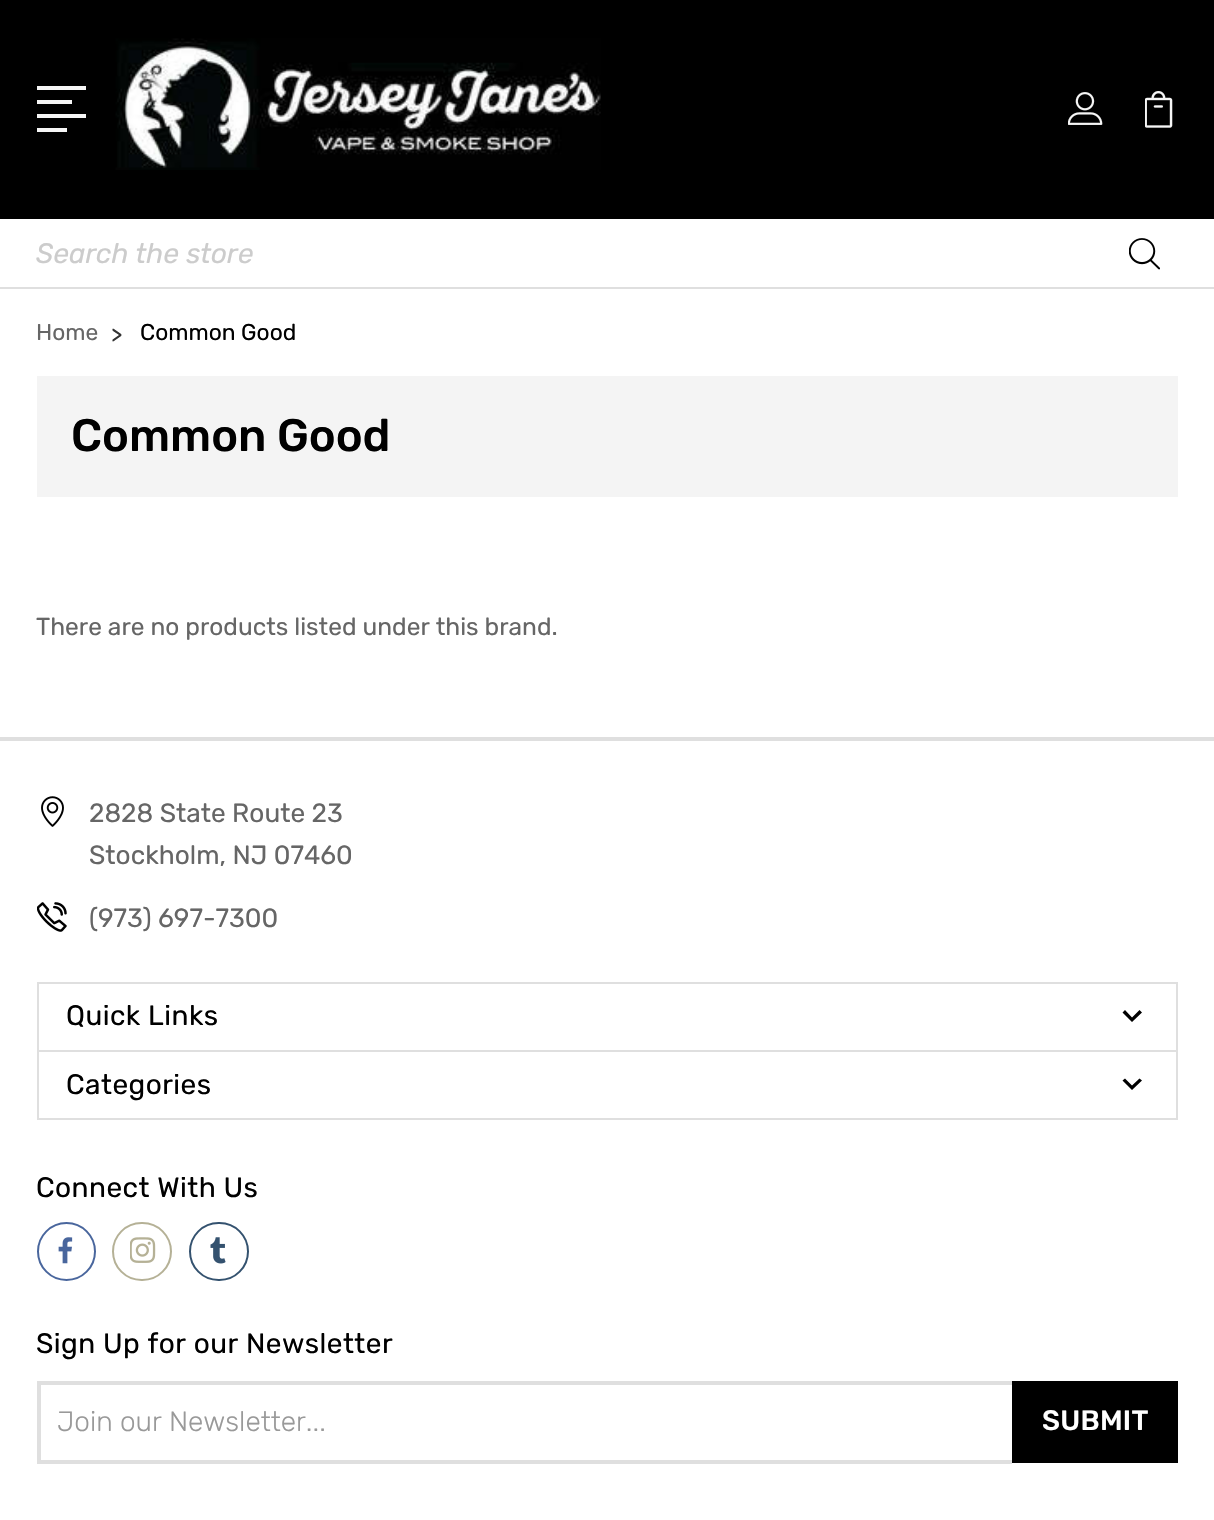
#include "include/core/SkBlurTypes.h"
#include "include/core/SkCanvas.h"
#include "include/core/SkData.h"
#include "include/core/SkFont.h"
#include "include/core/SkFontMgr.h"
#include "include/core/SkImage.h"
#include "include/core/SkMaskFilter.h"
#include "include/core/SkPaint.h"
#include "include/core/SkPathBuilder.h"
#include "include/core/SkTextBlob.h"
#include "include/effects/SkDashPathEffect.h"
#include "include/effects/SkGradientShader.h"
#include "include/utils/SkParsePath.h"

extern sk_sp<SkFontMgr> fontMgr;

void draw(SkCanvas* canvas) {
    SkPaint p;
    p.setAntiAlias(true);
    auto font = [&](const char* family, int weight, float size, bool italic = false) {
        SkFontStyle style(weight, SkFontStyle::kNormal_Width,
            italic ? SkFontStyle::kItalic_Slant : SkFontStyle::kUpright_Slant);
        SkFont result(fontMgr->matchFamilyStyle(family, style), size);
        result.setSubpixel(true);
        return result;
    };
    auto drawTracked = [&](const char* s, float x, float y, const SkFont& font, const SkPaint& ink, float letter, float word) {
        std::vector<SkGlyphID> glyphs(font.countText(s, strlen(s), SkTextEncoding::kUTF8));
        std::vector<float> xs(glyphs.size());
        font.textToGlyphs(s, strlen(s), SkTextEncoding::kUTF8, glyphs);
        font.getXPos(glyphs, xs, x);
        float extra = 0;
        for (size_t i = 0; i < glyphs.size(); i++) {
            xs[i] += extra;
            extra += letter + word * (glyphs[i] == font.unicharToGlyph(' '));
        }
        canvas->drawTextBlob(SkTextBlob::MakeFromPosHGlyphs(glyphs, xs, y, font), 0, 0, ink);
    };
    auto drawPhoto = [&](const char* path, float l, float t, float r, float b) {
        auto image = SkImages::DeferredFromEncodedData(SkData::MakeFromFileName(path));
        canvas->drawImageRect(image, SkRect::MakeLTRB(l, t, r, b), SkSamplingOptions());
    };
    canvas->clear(0xFFFFFFFF);
    {
        const struct { float l, t, r, b; SkColor color; } items[] = {
            {0, 0, 1214, 219, 0xFF000000},
            {37, 86, 86, 90, 0xFFF6F6F6},
            {37, 100, 72, 104, 0xFFF6F6F6},
            {37, 114, 86, 118, 0xFFF6F6F6},
            {37, 128, 67, 132, 0xFFF6F6F6},
        };
        for (auto [l, t, r, b, color] : items) {
            p.setColor(color);
            canvas->drawRect(SkRect::MakeLTRB(l, t, r, b), p);
        }
    }
    drawPhoto("media/1.png", 115, 38, 601, 170);
    drawPhoto("media/2.png", 1068, 92, 1103, 125);
    drawPhoto("media/3.png", 1145, 91, 1173, 128);
    p.setColor(0xFFDFDFDF);
    canvas->drawRect(SkRect::MakeLTRB(0, 287, 1214, 289), p);
    auto font1 = font("Rubik", 400, 28, true);
    p.setColor(0xFFCCCCCC);
    canvas->drawString("Search the store", 36, 263, font1, p);
    drawPhoto("media/4.png", 1129, 238, 1160, 270);
    auto font2 = font("Rubik", 400, 22.75f);
    p.setColor(0xFF666666);
    canvas->drawString("Home", 36, 340, font2, p);
    p.setColor(0xFF333333);
    canvas->drawString(">", 111, 342, font2, p);
    p.setColor(0xFF000000);
    canvas->drawString("Common Good", 140, 340, font2, p);
    p.setColor(0xFFF4F4F4);
    canvas->drawRect(SkRect::MakeLTRB(37, 376, 1178, 497), p);
    auto font3 = font("Rubik", 500, 45.5f);
    p.setColor(0xFF000000);
    canvas->drawString("Common Good", 71, 451, font3, p);
    auto font4 = font("Rubik", 400, 24.5f);
    p.setColor(0xFF666666);
    canvas->drawString("There are no products listed under this brand.", 36, 635, font4, p);
    p.setColor(0xFFDFDFDF);
    canvas->drawRect(SkRect::MakeLTRB(0, 737, 1214, 741), p);
    drawPhoto("media/5.png", 41, 796, 64, 827);
    auto font5 = font("Rubik", 400, 26.25f);
    p.setColor(0xFF666666);
    canvas->drawString("2828 State Route 23", 89, 822, font5, p);
    canvas->drawString("Stockholm, NJ 07460", 89, 864, font5, p);
    drawPhoto("media/6.png", 37, 902, 67, 932);
    canvas->drawString("(973) 697-7300", 89, 927, font5, p);
    p.setStyle(SkPaint::kStroke_Style);
    p.setStrokeWidth(2);
    p.setColor(0xFFDFDFDF);
    canvas->drawRect(SkRect::MakeLTRB(38, 983, 1177, 1051), p);
    auto font6 = font("Rubik", 400, 28);
    p.setStyle(SkPaint::kFill_Style);
    p.setColor(0xFF000000);
    drawTracked("Quick Links", 66, 1025, font6, p, 0.45f, 0);
    canvas->drawPath(SkPathBuilder().moveTo(1125, 1010).lineTo(1132, 1017.5f).lineTo(1139.5f, 1010).lineTo(1142, 1012.5f).lineTo(1132, 1022).lineTo(1122.5f, 1012.5f).close().detach(), p);
    p.setStyle(SkPaint::kStroke_Style);
    p.setColor(0xFFDFDFDF);
    canvas->drawRect(SkRect::MakeLTRB(38, 1051, 1177, 1119), p);
    p.setStyle(SkPaint::kFill_Style);
    p.setColor(0xFF000000);
    drawTracked("Categories", 66, 1094, font6, p, 0.45f, 0);
    canvas->drawPath(SkPathBuilder().moveTo(1125, 1078.5f).lineTo(1132, 1085.5f).lineTo(1139.5f, 1078.5f).lineTo(1142, 1080.5f).lineTo(1132, 1090).lineTo(1122.5f, 1080.5f).close().detach(), p);
    drawTracked("Connect With Us", 36, 1197, font6, p, 0.45f, 0);
    p.setStyle(SkPaint::kStroke_Style);
    p.setColor(0xFF49669D);
    canvas->drawCircle(66.5f, 1251.5f, 28.5f, p);
    drawPhoto("media/7.png", 58, 1237, 73, 1264);
    p.setColor(0xFFB5B196);
    canvas->drawRoundRect(SkRect::MakeLTRB(113, 1223, 171, 1280), 28.5f, 28.5f, p);
    drawPhoto("media/8.png", 130, 1237, 156, 1263);
    p.setColor(0xFF34526F);
    canvas->drawRoundRect(SkRect::MakeLTRB(190, 1223, 248, 1280), 28.5f, 28.5f, p);
    drawPhoto("media/9.png", 210, 1237, 226, 1264);
    p.setStyle(SkPaint::kFill_Style);
    p.setColor(0xFF000000);
    drawTracked("Sign Up for our Newsletter", 36, 1353, font6, p, 0.45f, 0);
    {
        const struct { float l, t, r, b; SkColor color; } items[] = {
            {37, 1381, 1012, 1385, 0xFFDFDFDF},
            {37, 1460, 1012, 1464, 0xFFDFDFDF},
            {37, 1381, 41, 1463, 0xFFDFDFDF},
        };
        for (auto [l, t, r, b, color] : items) {
            p.setColor(color);
            canvas->drawRect(SkRect::MakeLTRB(l, t, r, b), p);
        }
    }
    auto font7 = font("Rubik", 300, 28);
    p.setColor(0xFF999999);
    canvas->drawString("Join our Newsletter...", 57, 1431, font7, p);
    p.setColor(0xFF000000);
    canvas->drawRect(SkRect::MakeLTRB(1012, 1381, 1178, 1463), p);
    auto font8 = font("Rubik", 500, 28);
    p.setColor(0xFFFFFFFF);
    drawTracked("SUBMIT", 1042, 1430, font8, p, 0.25f, 0);
}
